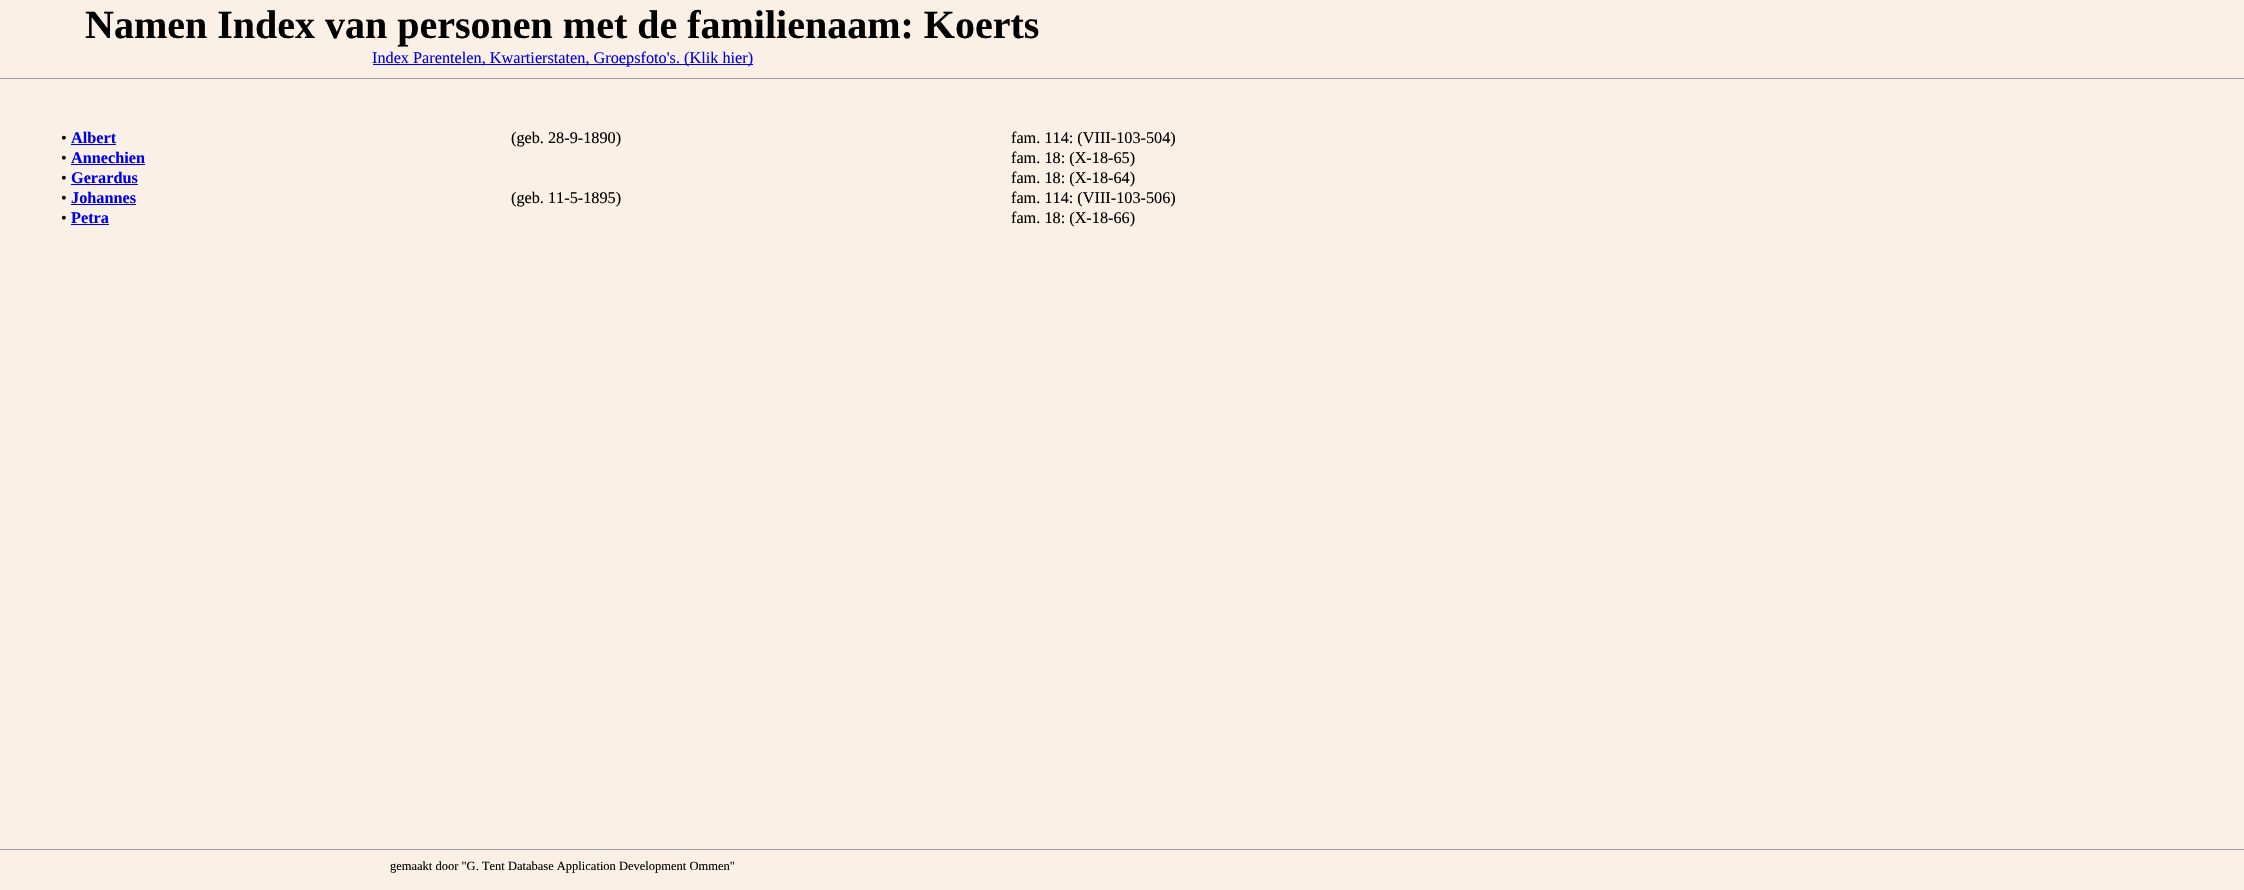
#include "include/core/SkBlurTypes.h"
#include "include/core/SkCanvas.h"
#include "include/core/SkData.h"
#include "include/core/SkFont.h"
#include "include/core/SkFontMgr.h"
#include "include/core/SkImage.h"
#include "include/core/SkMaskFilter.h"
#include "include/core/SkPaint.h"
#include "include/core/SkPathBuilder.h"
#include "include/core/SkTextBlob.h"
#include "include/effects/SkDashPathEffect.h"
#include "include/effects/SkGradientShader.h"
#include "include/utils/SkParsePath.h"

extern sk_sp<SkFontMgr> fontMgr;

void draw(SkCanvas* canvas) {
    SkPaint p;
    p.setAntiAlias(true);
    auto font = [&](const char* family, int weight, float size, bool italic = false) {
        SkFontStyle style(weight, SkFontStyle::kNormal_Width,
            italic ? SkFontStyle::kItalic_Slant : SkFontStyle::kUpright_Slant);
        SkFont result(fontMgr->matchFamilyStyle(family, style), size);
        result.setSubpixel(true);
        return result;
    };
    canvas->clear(0xFFFAF0E6);
    auto font1 = font("Liberation Serif", 700, 40);
    p.setColor(0xFF000000);
    canvas->drawString("Namen Index van personen met de familienaam: Koerts", 85, 38, font1, p);
    p.setColor(0xFF0000EE);
    canvas->drawRect(SkRect::MakeLTRB(373, 64, 753, 65), p);
    auto font2 = font("Liberation Serif", 400, 16.25f);
    canvas->drawString("Index Parentelen, Kwartierstaten, Groepsfoto's. (Klik hier)", 372, 63, font2, p);
    p.setColor(0xFF9F9F9F);
    canvas->drawRect(SkRect::MakeLTRB(0, 78, 2244, 79), p);
    p.setColor(0xFF000000);
    canvas->drawString("•", 61, 143, font2, p);
    auto font3 = font("Liberation Serif", 700, 16.25f);
    p.setColor(0xFF0000EE);
    canvas->drawString("Albert", 71, 143, font3, p);
    canvas->drawRect(SkRect::MakeLTRB(71, 144, 116, 145), p);
    p.setColor(0xFF000000);
    canvas->drawString("•", 61, 163, font2, p);
    p.setColor(0xFF0000EE);
    canvas->drawString("Annechien", 71, 163, font3, p);
    canvas->drawRect(SkRect::MakeLTRB(71, 164, 145, 165), p);
    p.setColor(0xFF000000);
    canvas->drawString("•", 61, 183, font2, p);
    p.setColor(0xFF0000EE);
    canvas->drawString("Gerardus", 71, 183, font3, p);
    canvas->drawRect(SkRect::MakeLTRB(71, 184, 138, 185), p);
    p.setColor(0xFF000000);
    canvas->drawString("•", 61, 203, font2, p);
    p.setColor(0xFF0000EE);
    canvas->drawString("Johannes", 71, 203, font3, p);
    canvas->drawRect(SkRect::MakeLTRB(71, 204, 136, 205), p);
    p.setColor(0xFF000000);
    canvas->drawString("•", 61, 223, font2, p);
    p.setColor(0xFF0000EE);
    canvas->drawString("Petra", 71, 223, font3, p);
    canvas->drawRect(SkRect::MakeLTRB(71, 224, 109, 225), p);
    p.setColor(0xFF000000);
    {
        const struct { const char* s; float x, y; } items[] = {
            {"(geb. 28-9-1890)", 511, 143},
            {"(geb. 11-5-1895)", 511, 203},
            {"fam. 114: (VIII-103-504)", 1011, 143},
            {"fam. 18: (X-18-65)", 1011, 163},
            {"fam. 18: (X-18-64)", 1011, 183},
            {"fam. 114: (VIII-103-506)", 1011, 203},
            {"fam. 18: (X-18-66)", 1011, 223},
        };
        for (auto [s, x, y] : items) {
            canvas->drawString(s, x, y, font2, p);
        }
    }
    p.setColor(0xFF9F9F9F);
    canvas->drawRect(SkRect::MakeLTRB(0, 849, 2244, 850), p);
    auto font4 = font("Liberation Serif", 400, 12.5f);
    p.setColor(0xFF000000);
    canvas->drawString("gemaakt door \"G. Tent Database Application Development Ommen\"", 390, 870, font4, p);
}
